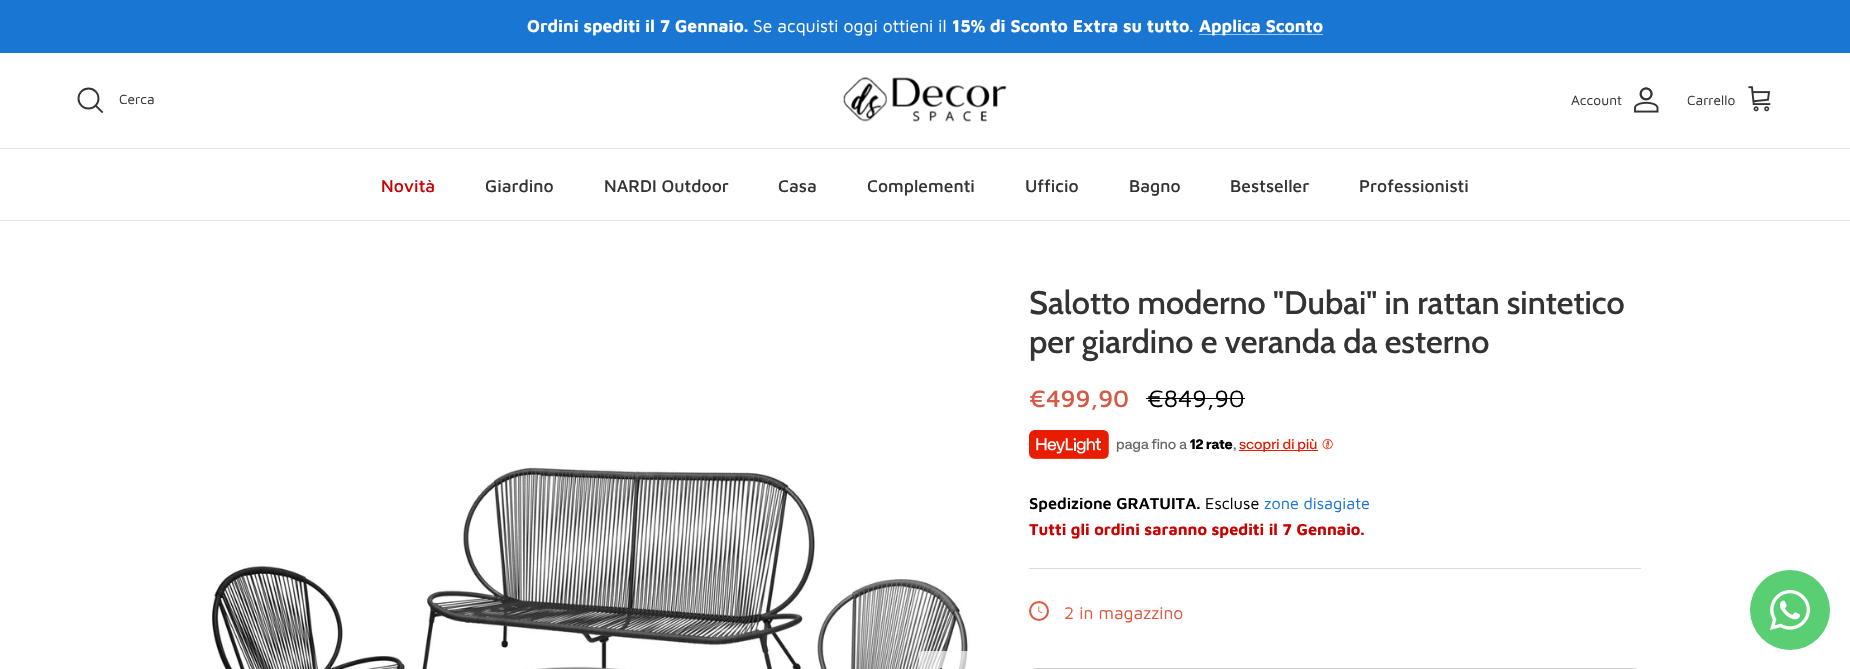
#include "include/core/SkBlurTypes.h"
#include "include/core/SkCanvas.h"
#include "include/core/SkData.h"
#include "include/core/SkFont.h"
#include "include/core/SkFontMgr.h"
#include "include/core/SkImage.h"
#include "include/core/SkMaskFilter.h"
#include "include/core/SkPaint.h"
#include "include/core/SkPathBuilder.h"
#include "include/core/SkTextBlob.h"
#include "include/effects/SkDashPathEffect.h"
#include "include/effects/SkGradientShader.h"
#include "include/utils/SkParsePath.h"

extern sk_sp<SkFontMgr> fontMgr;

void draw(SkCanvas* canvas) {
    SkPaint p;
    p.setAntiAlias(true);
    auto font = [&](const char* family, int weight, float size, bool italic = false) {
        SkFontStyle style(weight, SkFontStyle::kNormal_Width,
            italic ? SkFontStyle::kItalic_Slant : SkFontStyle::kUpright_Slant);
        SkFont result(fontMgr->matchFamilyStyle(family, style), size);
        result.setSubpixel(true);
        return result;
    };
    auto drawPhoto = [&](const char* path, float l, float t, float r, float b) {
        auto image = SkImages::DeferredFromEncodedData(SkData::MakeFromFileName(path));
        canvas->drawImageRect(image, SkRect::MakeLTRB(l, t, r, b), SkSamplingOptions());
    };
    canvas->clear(0xFFFFFFFF);
    p.setColor(0xFF1976D2);
    canvas->drawRect(SkRect::MakeLTRB(0, 0, 1850, 53), p);
    auto font1 = font("Maven Pro", 700, 17.5f);
    p.setColor(0xFFFFFFFF);
    canvas->drawString("Ordini spediti il 7 Gennaio.", 527, 32, font1, p);
    auto font2 = font("Maven Pro", 400, 17.5f);
    canvas->drawString("Se acquisti oggi ottieni il", 753, 32, font2, p);
    canvas->drawString("15% di Sconto Extra su tutto", 952, 32, font1, p);
    canvas->drawString(".", 1189, 32, font2, p);
    p.setColor(0xFFA3C8ED);
    canvas->drawRect(SkRect::MakeLTRB(1199, 34, 1323, 35), p);
    p.setColor(0xFFFFFFFF);
    canvas->drawString("Applica Sconto", 1199, 32, font1, p);
    p.setColor(0xFFE2E2E2);
    canvas->drawRect(SkRect::MakeLTRB(0, 148, 1850, 149), p);
    p.setStyle(SkPaint::kStroke_Style);
    p.setStrokeWidth(1.9f);
    p.setColor(0xFF333333);
    canvas->drawCircle(88.5f, 98.5f, 10, p);
    auto font3 = font("Maven Pro", 400, 13.75f);
    p.setStyle(SkPaint::kFill_Style);
    canvas->drawString("Cerca", 119, 104, font3, p);
    p.setStyle(SkPaint::kStroke_Style);
    p.setStrokeCap(SkPaint::kSquare_Cap);
    canvas->drawPath(SkPathBuilder().moveTo(96, 106).lineTo(102, 112).detach(), p);
    drawPhoto("media/1.png", 843, 77, 1007, 122);
    p.setStyle(SkPaint::kFill_Style);
    canvas->drawString("Account", 1571, 105, font3, p);
    drawPhoto("media/2.png", 1634, 87, 1659, 113);
    canvas->drawString("Carrello", 1687, 105, font3, p);
    drawPhoto("media/3.png", 1748, 86, 1771, 112);
    p.setColor(0xFFE2E2E2);
    canvas->drawRect(SkRect::MakeLTRB(0, 220, 1850, 221), p);
    auto font4 = font("Maven Pro", 500, 17.5f);
    p.setColor(0xFFCC0000);
    canvas->drawString("Novità", 381, 192, font4, p);
    p.setColor(0xFF333333);
    {
        const struct { const char* s; float x, y; } items[] = {
            {"Giardino", 485, 192},
            {"NARDI Outdoor", 604, 192},
            {"Casa", 778, 192},
            {"Complementi", 867, 192},
            {"Ufficio", 1025, 192},
            {"Bagno", 1129, 192},
            {"Bestseller", 1230, 192},
            {"Professionisti", 1359, 192},
        };
        for (auto [s, x, y] : items) {
            canvas->drawString(s, x, y, font4, p);
        }
    }
    drawPhoto("media/4.png", 212, 467, 970, 669);
    p.setColor(0xB3FFFFFF);
    canvas->drawPath(SkPathBuilder().moveTo(923, 651).lineTo(974, 651).lineTo(974, 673).lineTo(923, 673).cubicTo(921, 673, 919, 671, 919, 669).lineTo(919, 655).cubicTo(919, 653, 921, 651, 923, 651).close().detach(), p);
    p.setStyle(SkPaint::kStroke_Style);
    p.setStrokeWidth(1.7f);
    p.setStrokeCap(SkPaint::kRound_Cap);
    p.setStrokeJoin(SkPaint::kRound_Join);
    p.setColor(0xFF000000);
    canvas->drawPath(SkPathBuilder().moveTo(941, 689).lineTo(951, 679).lineTo(941, 669).detach(), p);
    auto font5 = font("Cabin", 500, 32.5f);
    p.setStyle(SkPaint::kFill_Style);
    p.setColor(0xFF333333);
    canvas->drawString("Salotto moderno \"Dubai\" in rattan sintetico", 1029, 314, font5, p);
    canvas->drawString("per giardino e veranda da esterno", 1029, 353, font5, p);
    auto font6 = font("Maven Pro", 500, 24.5f);
    p.setColor(0xFFD75845);
    canvas->drawString("€499,90", 1029, 407, font6, p);
    auto font7 = font("Maven Pro", 400, 24.5f);
    p.setColor(0xFF000000);
    canvas->drawString("€849,90", 1147, 407, font7, p);
    canvas->drawRect(SkRect::MakeLTRB(1146, 398, 1245, 399), p);
    drawPhoto("media/5.png", 1029, 430, 1109, 459);
    auto font8 = font("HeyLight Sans", 300, 13.75f);
    p.setColor(0xFF666666);
    canvas->drawString("paga fino a", 1116, 449, font8, p);
    auto font9 = font("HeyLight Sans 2", 300, 13.75f);
    p.setColor(0xFF000000);
    canvas->drawString("12 rate", 1190, 449, font9, p);
    p.setColor(0xFF666666);
    canvas->drawString(",", 1233, 449, font8, p);
    p.setColor(0xFFEA1C00);
    canvas->drawRect(SkRect::MakeLTRB(1239, 450, 1318, 451), p);
    canvas->drawString("scopri di più", 1239, 449, font8, p);
    canvas->drawString("ⓘ", 1322, 449, font8, p);
    auto font10 = font("Maven Pro", 600, 16.25f);
    p.setColor(0xFF000000);
    canvas->drawString("Spedizione GRATUITA.", 1029, 509, font10, p);
    auto font11 = font("Maven Pro", 400, 16.25f);
    canvas->drawString("Escluse", 1205, 509, font11, p);
    p.setColor(0xFF1976D2);
    canvas->drawString("zone disagiate", 1264, 509, font11, p);
    auto font12 = font("Maven Pro", 700, 16.25f);
    p.setColor(0xFFCC0000);
    canvas->drawString("Tutti gli ordini saranno spediti il 7 Gennaio.", 1029, 535, font12, p);
    p.setColor(0xFFDBDBDB);
    canvas->drawRect(SkRect::MakeLTRB(1029, 568, 1641, 569), p);
    p.setColor(0xFFDF5641);
    canvas->drawCircle(1039, 611, 10, p);
    drawPhoto("media/6.png", 1030, 602, 1048, 620);
    canvas->drawString("2 in magazzino", 1064, 619, font2, p);
    p.setStyle(SkPaint::kStroke_Style);
    p.setStrokeWidth(1);
    p.setStrokeCap(SkPaint::kButt_Cap);
    p.setStrokeJoin(SkPaint::kMiter_Join);
    p.setColor(0xFFCCCCCC);
    canvas->drawRoundRect(SkRect::MakeLTRB(1029.5f, 668.5f, 1640.5f, 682.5f), 12.5f, 12.5f, p);
    p.setStyle(SkPaint::kFill_Style);
    p.setColor(0xFF59CE72);
    canvas->drawCircle(1790, 610, 40, p);
    drawPhoto("media/7.png", 1770, 590, 1810, 630);
}
